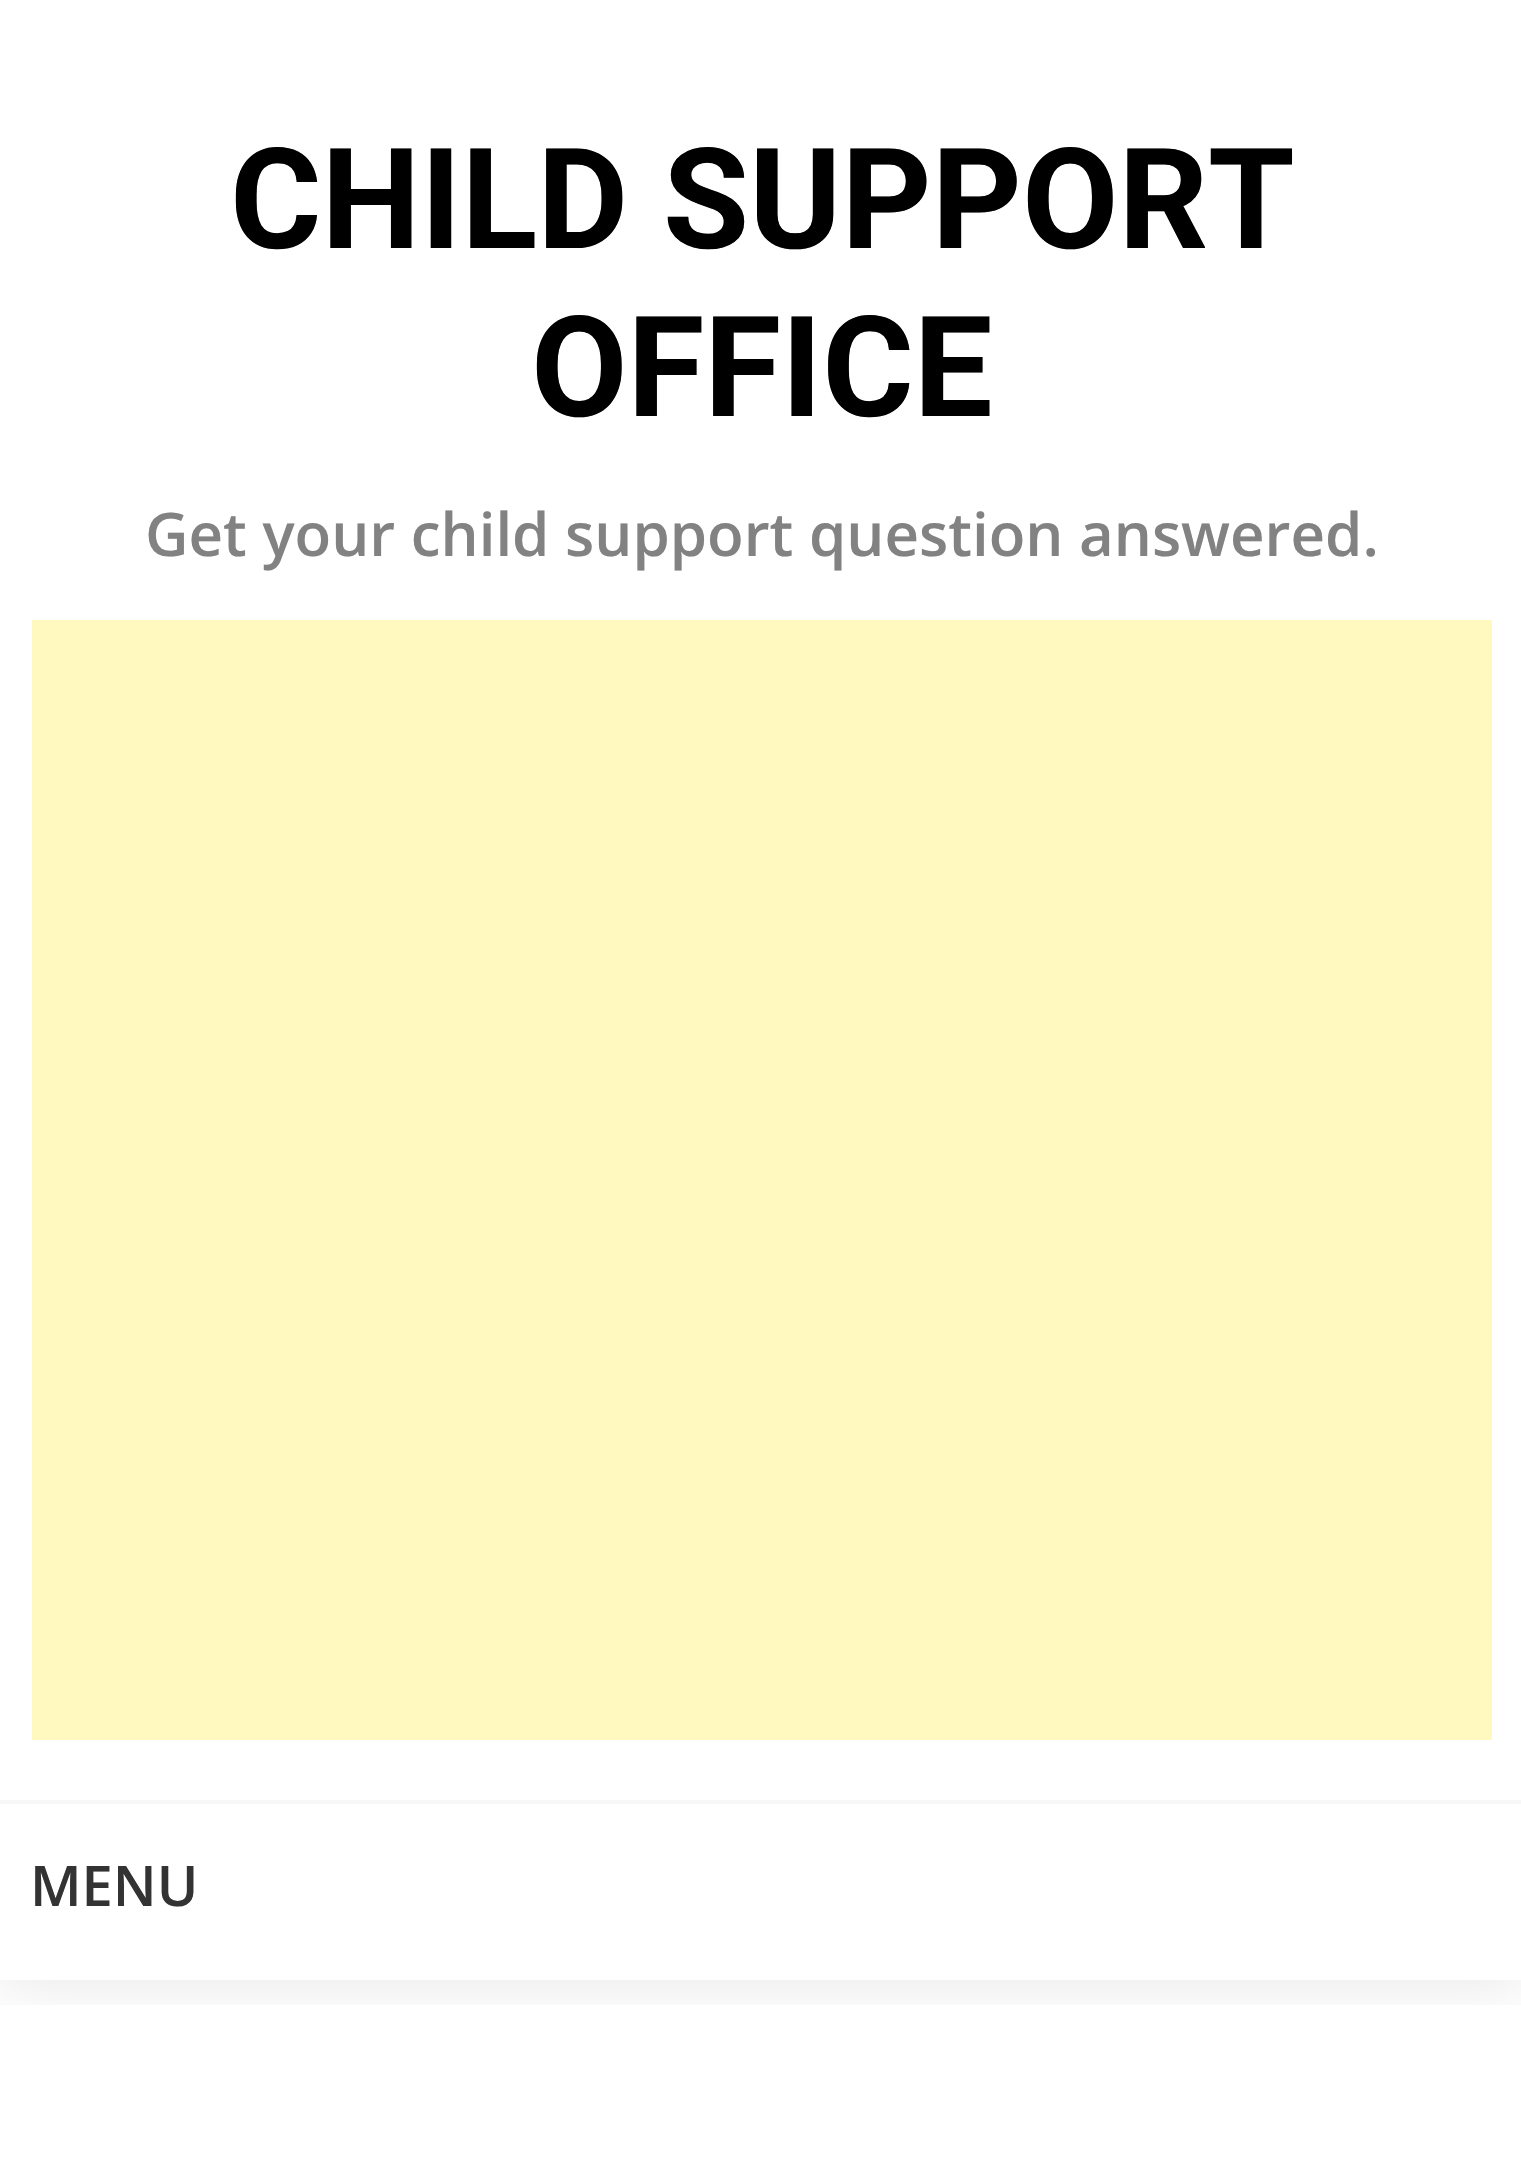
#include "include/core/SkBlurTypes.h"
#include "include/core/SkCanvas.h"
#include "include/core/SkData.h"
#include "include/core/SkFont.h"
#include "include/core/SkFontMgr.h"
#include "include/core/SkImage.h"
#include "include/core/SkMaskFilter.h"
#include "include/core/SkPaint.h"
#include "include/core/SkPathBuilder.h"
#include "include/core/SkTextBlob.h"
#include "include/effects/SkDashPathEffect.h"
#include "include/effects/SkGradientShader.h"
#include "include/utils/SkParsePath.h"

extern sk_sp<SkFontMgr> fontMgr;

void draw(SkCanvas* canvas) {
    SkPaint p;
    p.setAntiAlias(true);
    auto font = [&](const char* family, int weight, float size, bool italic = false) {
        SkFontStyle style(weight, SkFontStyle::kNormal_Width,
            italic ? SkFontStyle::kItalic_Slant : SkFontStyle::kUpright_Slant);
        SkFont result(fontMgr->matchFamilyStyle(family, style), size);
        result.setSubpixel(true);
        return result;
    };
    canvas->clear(0xFFFFFFFF);
    canvas->save();
    canvas->clipRect(SkRect::MakeLTRB(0, 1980, 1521, 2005));
    p.setColor(0x1A000000);
    p.setMaskFilter(SkMaskFilter::MakeBlur(kNormal_SkBlurStyle, 30));
    canvas->drawRect(SkRect::MakeLTRB(0, 0, 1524, 1980), p);
    p.setMaskFilter(nullptr);
    canvas->restore();
    auto font1 = font("Roboto", 700, 140);
    p.setColor(0xFF000000);
    canvas->drawString("CHILD SUPPORT", 230, 248, font1, p);
    canvas->drawString("OFFICE", 531, 416, font1, p);
    auto font2 = font("Open Sans", 600, 60);
    p.setColor(0xFF828282);
    canvas->drawString("Get your child support question answered.", 145, 556, font2, p);
    p.setColor(0xFFFFF9C0);
    canvas->drawRect(SkRect::MakeLTRB(32, 620, 1492, 1740), p);
    p.setColor(0xFFF7F7F7);
    canvas->drawRect(SkRect::MakeLTRB(0, 1800, 1521, 1804), p);
    auto font3 = font("Open Sans", 600, 56);
    p.setColor(0xFF333333);
    canvas->drawString("MENU", 30, 1906, font3, p);
}
